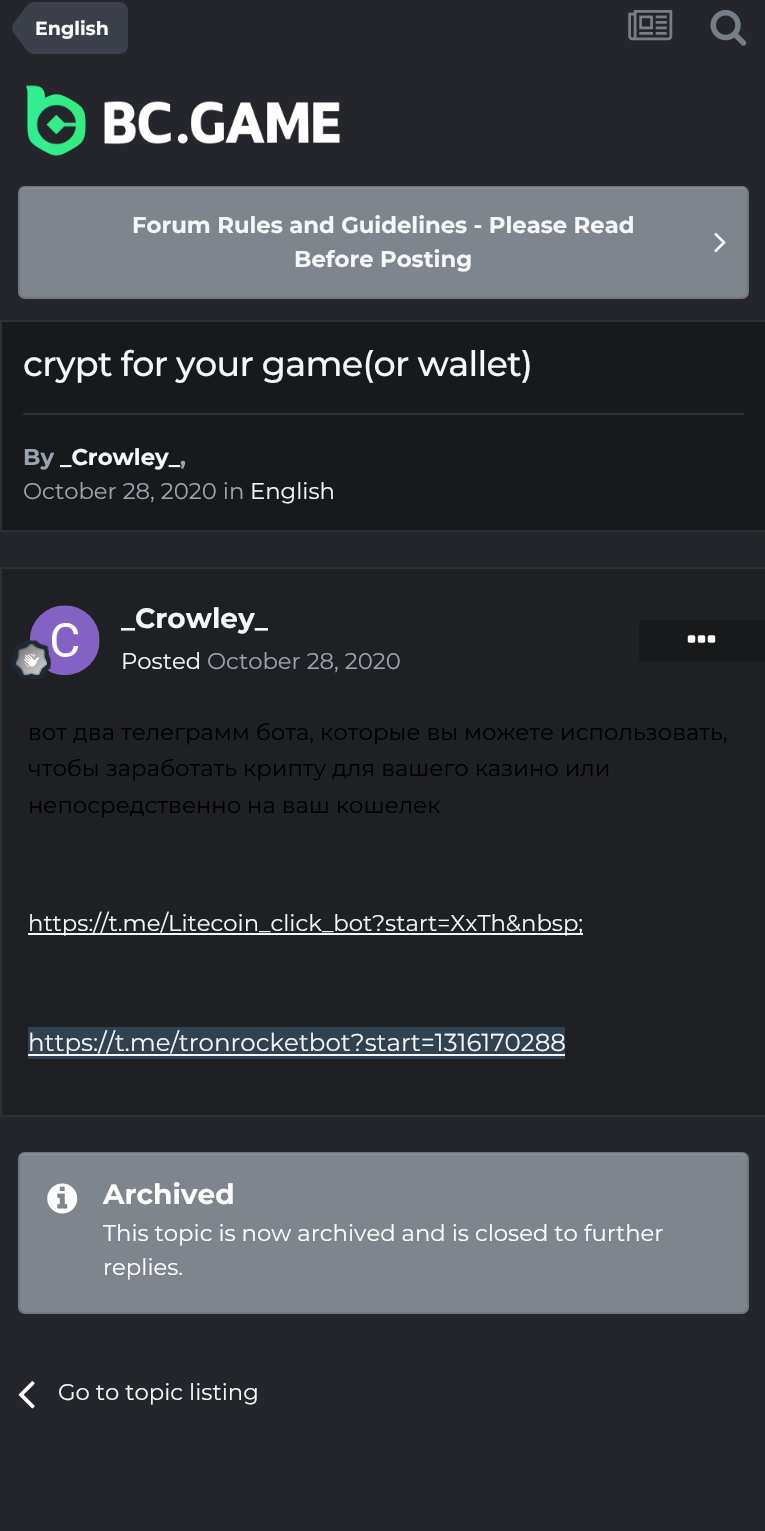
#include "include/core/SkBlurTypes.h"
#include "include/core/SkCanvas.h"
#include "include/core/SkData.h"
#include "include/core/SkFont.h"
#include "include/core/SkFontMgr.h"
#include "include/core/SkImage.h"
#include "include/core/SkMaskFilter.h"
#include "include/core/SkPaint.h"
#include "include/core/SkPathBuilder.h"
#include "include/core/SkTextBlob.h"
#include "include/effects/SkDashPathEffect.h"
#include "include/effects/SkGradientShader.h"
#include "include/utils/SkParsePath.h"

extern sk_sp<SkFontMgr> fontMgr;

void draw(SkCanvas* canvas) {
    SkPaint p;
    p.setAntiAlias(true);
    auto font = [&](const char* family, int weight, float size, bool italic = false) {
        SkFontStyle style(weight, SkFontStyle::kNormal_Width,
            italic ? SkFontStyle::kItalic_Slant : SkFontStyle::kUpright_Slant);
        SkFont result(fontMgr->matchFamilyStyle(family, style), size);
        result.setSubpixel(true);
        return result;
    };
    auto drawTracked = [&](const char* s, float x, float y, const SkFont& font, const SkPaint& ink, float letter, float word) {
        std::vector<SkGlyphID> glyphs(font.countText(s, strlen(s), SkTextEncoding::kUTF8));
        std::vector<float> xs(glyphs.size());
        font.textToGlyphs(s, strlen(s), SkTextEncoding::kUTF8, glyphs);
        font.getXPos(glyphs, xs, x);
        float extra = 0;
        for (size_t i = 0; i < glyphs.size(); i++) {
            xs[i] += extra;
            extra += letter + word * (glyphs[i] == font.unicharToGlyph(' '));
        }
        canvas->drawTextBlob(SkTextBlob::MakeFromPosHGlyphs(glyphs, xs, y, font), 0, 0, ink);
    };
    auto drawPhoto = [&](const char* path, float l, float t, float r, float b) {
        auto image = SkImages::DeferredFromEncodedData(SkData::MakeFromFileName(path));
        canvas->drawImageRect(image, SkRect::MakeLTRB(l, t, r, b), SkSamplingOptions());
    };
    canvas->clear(0xFF24262B);
    p.setColor(0xFF3C404A);
    canvas->drawPath(SkPathBuilder().moveTo(35, 2).lineTo(119, 2).cubicTo(124, 2, 128, 6, 128, 11).lineTo(128, 45).cubicTo(128, 50, 124, 54, 119, 54).lineTo(35, 54).close().detach(), p);
    canvas->drawPath(SkPathBuilder().moveTo(45, 8).lineTo(49, 13).cubicTo(55, 21, 55, 35, 49, 43).lineTo(45, 48).cubicTo(40, 56, 30, 56, 25, 48).lineTo(13, 32).cubicTo(12, 30, 12, 26, 13, 24).lineTo(25, 8).cubicTo(30, 0, 40, 0, 45, 8).close().detach(), p);
    auto font1 = font("Montserrat", 700, 19);
    p.setColor(0xFFFFFFFF);
    canvas->drawString("English", 35, 35, font1, p);
    drawPhoto("media/1.png", 628, 10, 673, 41);
    drawPhoto("media/2.png", 710, 10, 747, 46);
    drawPhoto("media/3.png", 26, 85, 340, 156);
    p.setColor(0xFF7F858D);
    canvas->drawRoundRect(SkRect::MakeLTRB(18, 186, 749, 299), 7, 7, p);
    p.setColor(0xFF8C9198);
    canvas->drawPath(SkPathBuilder().moveTo(24, 189).lineTo(742, 189).cubicTo(745, 189, 747, 191, 747, 194).lineTo(747, 192).cubicTo(747, 189, 745, 187, 742, 187).lineTo(24, 187).cubicTo(21, 187, 19, 189, 19, 192).lineTo(19, 194).cubicTo(19, 191, 22, 189, 24, 189).close().detach(), p);
    p.setStyle(SkPaint::kStroke_Style);
    p.setStrokeWidth(2);
    p.setColor(0x1A000000);
    canvas->drawRoundRect(SkRect::MakeLTRB(19, 187, 748, 298), 6, 6, p);
    auto font2 = font("Montserrat", 700, 22.75f);
    p.setStyle(SkPaint::kFill_Style);
    p.setColor(0xFFF5F6F7);
    canvas->drawString("Forum Rules and Guidelines - Please Read", 132, 233, font2, p);
    drawPhoto("media/4.png", 714, 232, 726, 253);
    canvas->drawString("Before Posting", 294, 267, font2, p);
    p.setColor(0xFF17191B);
    canvas->drawRect(SkRect::MakeLTRB(1, 321, 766, 531), p);
    p.setStyle(SkPaint::kStroke_Style);
    p.setColor(0xFF2D3035);
    canvas->drawRect(SkRect::MakeLTRB(1, 321, 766, 531), p);
    auto font3 = font("Montserrat", 500, 35);
    p.setStyle(SkPaint::kFill_Style);
    p.setColor(0xFFF5F6F7);
    drawTracked("crypt for your game(or wallet)", 23, 376, font3, p, -0.7f, 0);
    p.setColor(0xFF2D3037);
    canvas->drawRect(SkRect::MakeLTRB(23, 413, 744, 415), p);
    p.setColor(0xFF99A4B0);
    canvas->drawString("By", 23, 465, font2, p);
    p.setColor(0xFFF5F6F7);
    canvas->drawString("_Crowley_", 60, 465, font2, p);
    p.setColor(0xFF99A4B0);
    canvas->drawString(",", 180, 465, font2, p);
    auto font4 = font("Montserrat", 400, 22.75f);
    canvas->drawString("October 28, 2020 in", 23, 499, font4, p);
    p.setColor(0xFFF5F6F7);
    canvas->drawString("English", 250, 499, font4, p);
    p.setColor(0xFF1E2024);
    canvas->drawRect(SkRect::MakeLTRB(1, 568, 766, 1116), p);
    p.setStyle(SkPaint::kStroke_Style);
    p.setColor(0xFF2D3035);
    canvas->drawRect(SkRect::MakeLTRB(1, 568, 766, 1116), p);
    drawPhoto("media/5.png", 30, 605, 100, 675);
    drawPhoto("media/6.png", 12, 640, 51, 679);
    canvas->save();
    canvas->clipRect(SkRect::MakeLTRB(121, 604, 268, 635));
    auto font5 = font("Montserrat", 700, 28);
    p.setStyle(SkPaint::kFill_Style);
    p.setColor(0xFFF5F6F7);
    canvas->drawString("_Crowley_", 121, 628, font5, p);
    canvas->restore();
    canvas->drawString("Posted", 121, 669, font4, p);
    p.setColor(0xFF99A4B0);
    canvas->drawString("October 28, 2020", 207, 669, font4, p);
    p.setColor(0xFF17191B);
    canvas->drawRect(SkRect::MakeLTRB(639, 620, 765, 662), p);
    drawPhoto("media/7.png", 687, 635, 716, 643);
    p.setColor(0xFF000000);
    {
        const struct { const char* s; float x, y; } items[] = {
            {"вот два телеграмм бота, которые вы можете использовать,", 28, 740},
            {"чтобы заработать крипту для вашего казино или", 28, 776},
            {"непосредственно на ваш кошелек", 28, 813},
        };
        for (auto [s, x, y] : items) {
            canvas->drawString(s, x, y, font4, p);
        }
    }
    p.setColor(0xFFF5F6F7);
    canvas->drawRect(SkRect::MakeLTRB(28, 933, 583, 935), p);
    canvas->drawString("https://t.me/Litecoin_click_bot?start=XxTh&nbsp;", 28, 931, font4, p);
    p.setColor(0xFF30414F);
    canvas->drawRect(SkRect::MakeLTRB(28, 1027, 565, 1059), p);
    p.setColor(0xFFF5F6F7);
    canvas->drawRect(SkRect::MakeLTRB(28, 1054, 565, 1056), p);
    auto font6 = font("Montserrat", 400, 24.5f);
    canvas->drawString("https://t.me/tronrocketbot?start=1316170288", 28, 1051, font6, p);
    p.setColor(0xFF7F858D);
    canvas->drawRoundRect(SkRect::MakeLTRB(18, 1152, 749, 1314), 7, 7, p);
    p.setColor(0xFF8C9198);
    canvas->drawPath(SkPathBuilder().moveTo(24, 1155).lineTo(742, 1155).cubicTo(745, 1155, 747, 1157, 747, 1160).lineTo(747, 1158).cubicTo(747, 1155, 745, 1153, 742, 1153).lineTo(24, 1153).cubicTo(21, 1153, 19, 1155, 19, 1158).lineTo(19, 1160).cubicTo(19, 1157, 22, 1155, 24, 1155).close().detach(), p);
    p.setStyle(SkPaint::kStroke_Style);
    p.setColor(0x1A000000);
    canvas->drawRoundRect(SkRect::MakeLTRB(19, 1153, 748, 1313), 6, 6, p);
    drawPhoto("media/8.png", 47, 1183, 78, 1214);
    p.setStyle(SkPaint::kFill_Style);
    p.setColor(0xFFFFFFFF);
    canvas->drawString("Archived", 103, 1204, font5, p);
    canvas->drawString("This topic is now archived and is closed to further", 103, 1241, font4, p);
    canvas->drawString("replies.", 103, 1275, font4, p);
    drawPhoto("media/9.png", 18, 1381, 35, 1409);
    p.setColor(0xFFF5F6F7);
    canvas->drawString("Go to topic listing", 58, 1400, font4, p);
}
